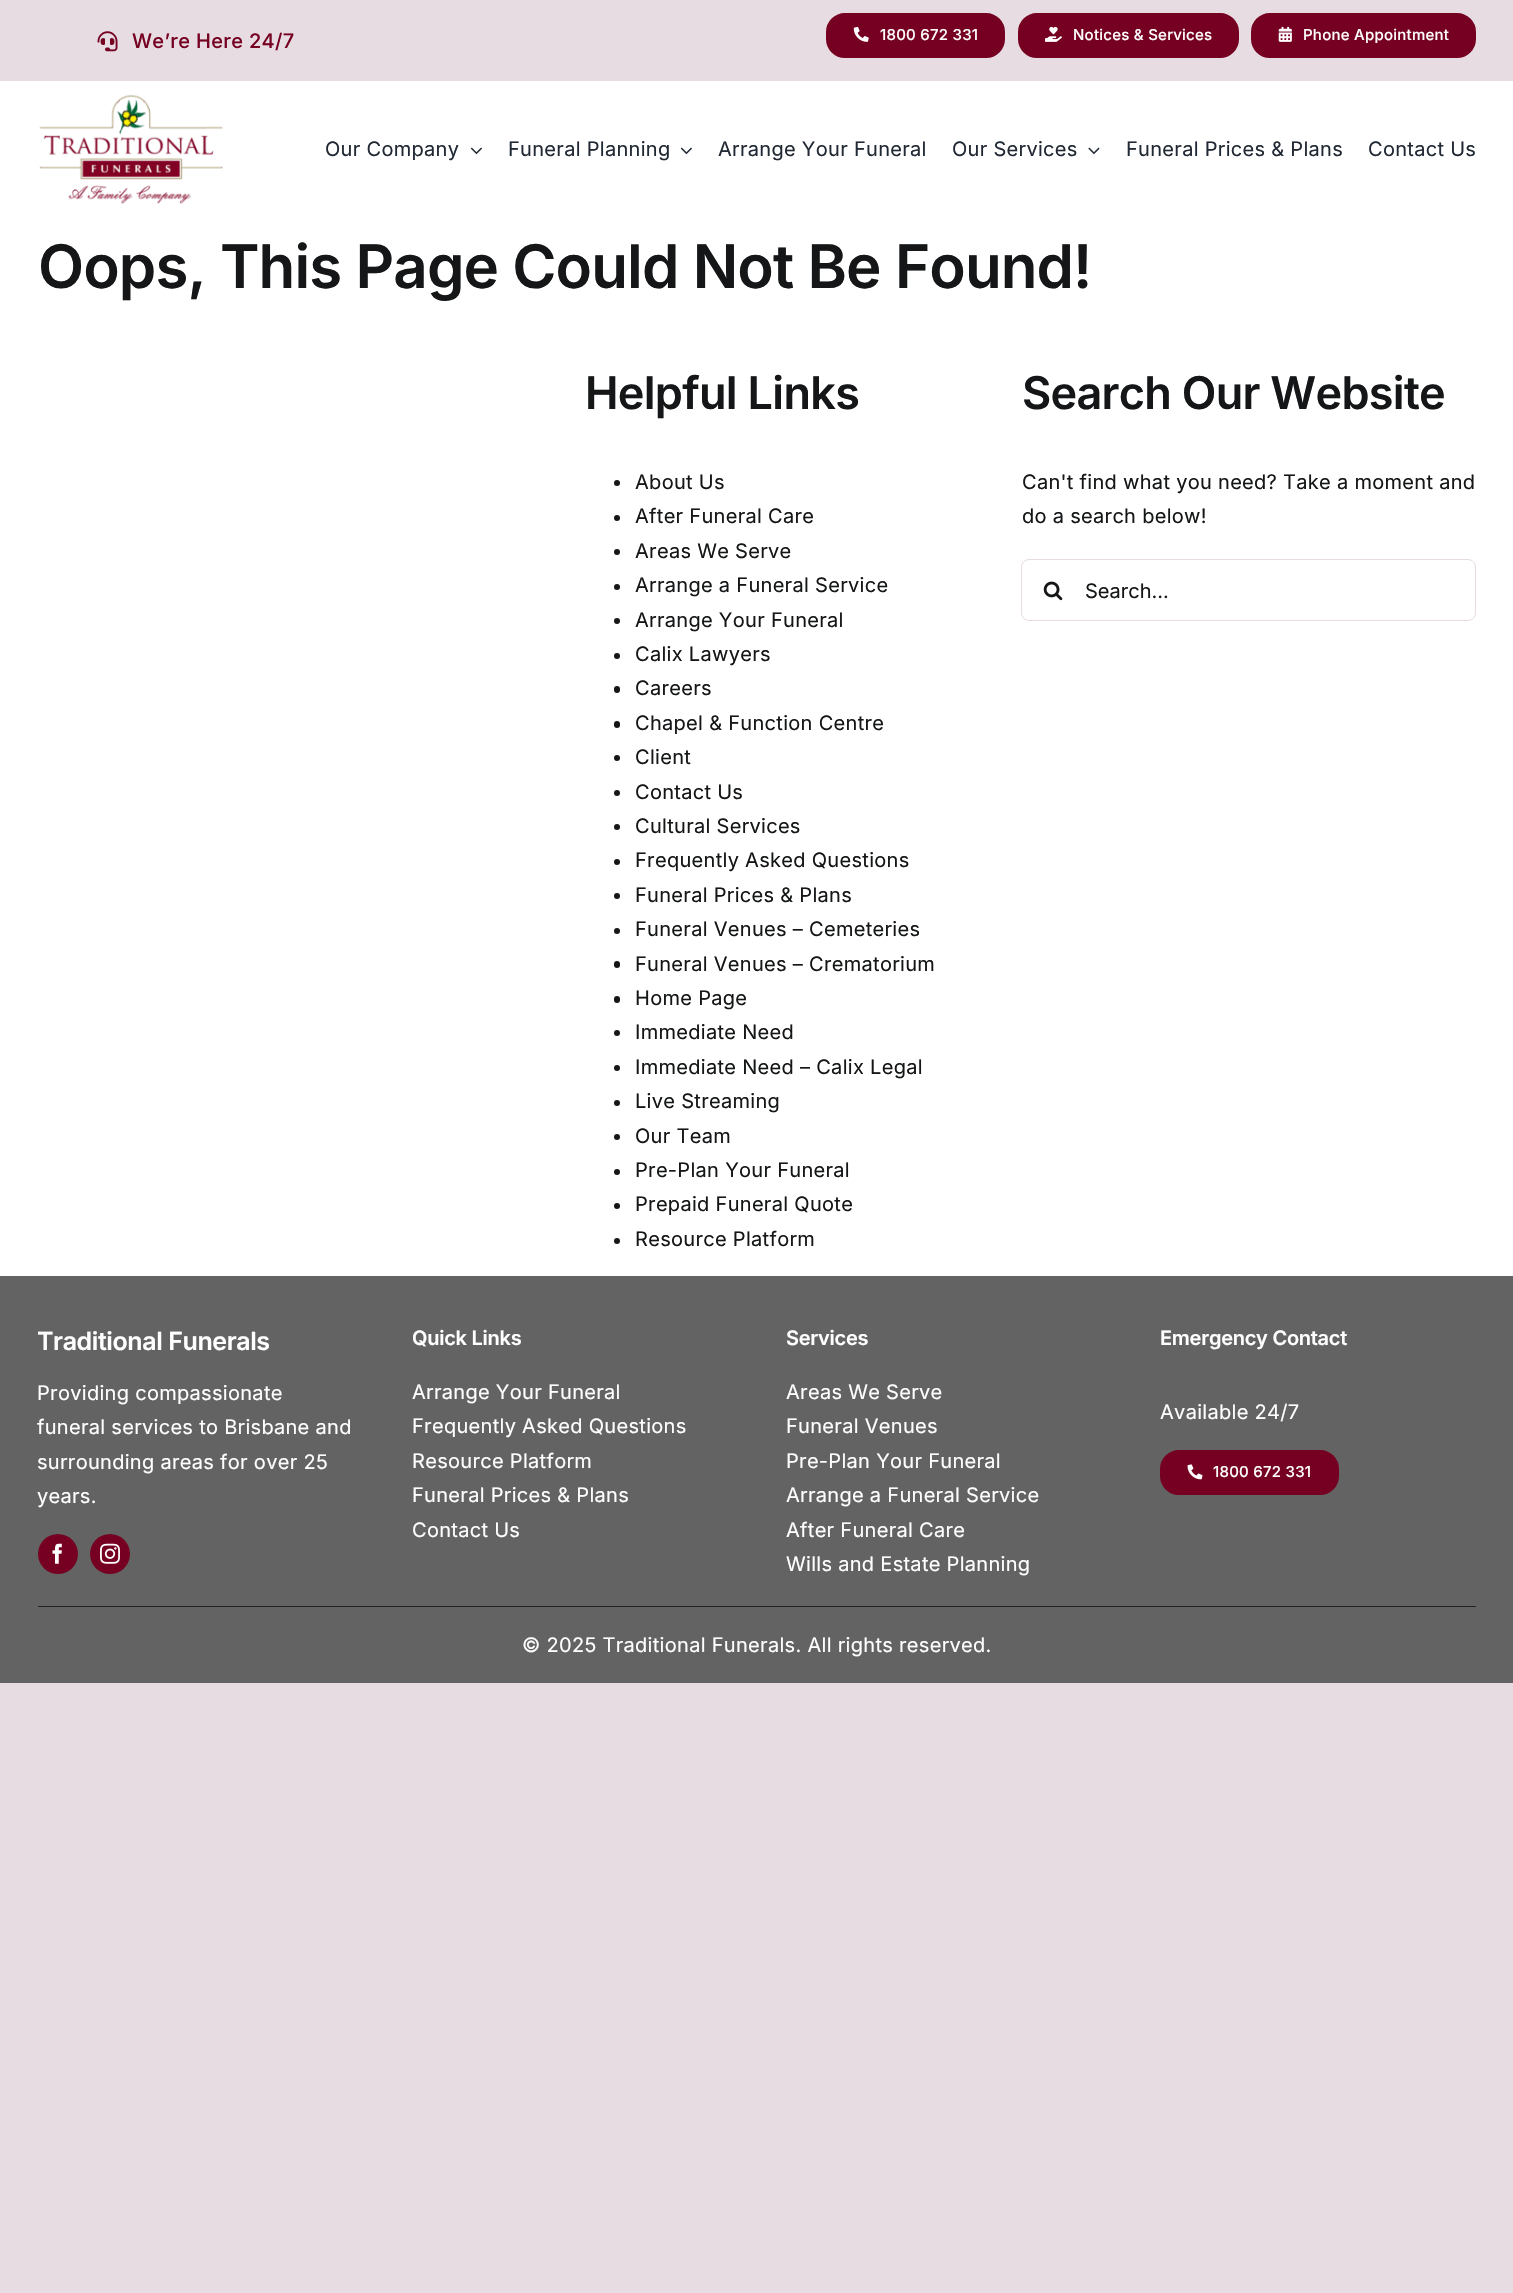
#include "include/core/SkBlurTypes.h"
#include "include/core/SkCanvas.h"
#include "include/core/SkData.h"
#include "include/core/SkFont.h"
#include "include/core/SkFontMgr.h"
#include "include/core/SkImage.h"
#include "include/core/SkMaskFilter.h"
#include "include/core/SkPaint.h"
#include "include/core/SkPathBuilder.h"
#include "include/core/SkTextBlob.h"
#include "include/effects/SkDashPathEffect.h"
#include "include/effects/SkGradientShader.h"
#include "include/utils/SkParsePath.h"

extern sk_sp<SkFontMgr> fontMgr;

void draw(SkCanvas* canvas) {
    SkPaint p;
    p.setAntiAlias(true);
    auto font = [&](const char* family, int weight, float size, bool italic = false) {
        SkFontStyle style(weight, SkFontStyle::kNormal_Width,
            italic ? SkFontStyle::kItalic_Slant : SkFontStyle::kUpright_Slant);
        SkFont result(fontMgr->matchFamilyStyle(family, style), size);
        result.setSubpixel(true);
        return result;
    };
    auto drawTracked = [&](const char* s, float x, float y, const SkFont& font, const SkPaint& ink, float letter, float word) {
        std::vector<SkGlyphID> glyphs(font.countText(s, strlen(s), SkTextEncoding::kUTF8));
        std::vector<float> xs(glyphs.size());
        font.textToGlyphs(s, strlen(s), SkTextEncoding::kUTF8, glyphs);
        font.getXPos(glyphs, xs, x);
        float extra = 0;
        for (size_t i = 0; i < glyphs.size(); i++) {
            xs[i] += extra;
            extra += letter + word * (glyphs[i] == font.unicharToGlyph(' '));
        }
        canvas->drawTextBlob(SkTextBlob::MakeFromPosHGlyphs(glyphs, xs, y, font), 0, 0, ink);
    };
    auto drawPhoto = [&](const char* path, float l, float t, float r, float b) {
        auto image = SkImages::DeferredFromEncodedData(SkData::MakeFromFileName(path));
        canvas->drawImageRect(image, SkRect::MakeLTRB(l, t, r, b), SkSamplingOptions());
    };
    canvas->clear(0xFFE6DCE1);
    p.setColor(0xFFFFFFFF);
    canvas->drawRect(SkRect::MakeLTRB(0, 81, 1513, 1276), p);
    drawPhoto("media/1.png", 97, 31, 118, 52);
    auto font1 = font("Inter", 500, 20);
    p.setColor(0xFF750021);
    drawTracked("We’re Here 24/7", 132, 48, font1, p, 0.3f, 0);
    canvas->drawRoundRect(SkRect::MakeLTRB(827.5f, 14.5f, 1003.5f, 56.5f), 17.5f, 17.5f, p);
    p.setStyle(SkPaint::kStroke_Style);
    p.setStrokeWidth(3);
    canvas->drawRoundRect(SkRect::MakeLTRB(827.5f, 14.5f, 1003.5f, 56.5f), 17.5f, 17.5f, p);
    drawPhoto("media/2.png", 853, 26, 869, 42);
    auto font2 = font("Inter", 500, 15);
    p.setStyle(SkPaint::kFill_Style);
    p.setColor(0xFFFFFFFF);
    drawTracked("1800 672 331", 880, 40, font2, p, 0.25f, 0);
    p.setColor(0xFF750021);
    canvas->drawRoundRect(SkRect::MakeLTRB(1019.5f, 14.5f, 1237.5f, 56.5f), 17.5f, 17.5f, p);
    p.setStyle(SkPaint::kStroke_Style);
    canvas->drawRoundRect(SkRect::MakeLTRB(1019.5f, 14.5f, 1237.5f, 56.5f), 17.5f, 17.5f, p);
    drawPhoto("media/3.png", 1045, 26, 1062, 42);
    p.setStyle(SkPaint::kFill_Style);
    p.setColor(0xFFFFFFFF);
    drawTracked("Notices & Services", 1073, 40, font2, p, 0.25f, 0);
    p.setColor(0xFF750021);
    canvas->drawRoundRect(SkRect::MakeLTRB(1252.5f, 14.5f, 1474.5f, 56.5f), 17.5f, 17.5f, p);
    p.setStyle(SkPaint::kStroke_Style);
    canvas->drawRoundRect(SkRect::MakeLTRB(1252.5f, 14.5f, 1474.5f, 56.5f), 17.5f, 17.5f, p);
    drawPhoto("media/4.png", 1278, 26, 1292, 42);
    p.setStyle(SkPaint::kFill_Style);
    p.setColor(0xFFFFFFFF);
    drawTracked("Phone Appointment", 1303, 40, font2, p, 0.25f, 0);
    drawPhoto("media/5.png", 39, 94, 223, 204);
    auto font3 = font("Inter", 400, 20);
    p.setColor(0xFF212934);
    drawTracked("Our Company", 325, 156, font3, p, 0.3f, 0);
    drawPhoto("media/6.png", 470, 147, 482, 155);
    drawTracked("Funeral Planning", 508, 156, font3, p, 0.3f, 0);
    drawPhoto("media/6.png", 680, 147, 692, 155);
    drawTracked("Arrange Your Funeral", 718, 156, font3, p, 0.3f, 0);
    drawTracked("Our Services", 952, 156, font3, p, 0.3f, 0);
    drawPhoto("media/7.png", 1088, 147, 1100, 155);
    drawTracked("Funeral Prices & Plans", 1126, 156, font3, p, 0.3f, 0);
    drawTracked("Contact Us", 1368, 156, font3, p, 0.3f, 0);
    auto font4 = font("Inter", 600, 60);
    p.setColor(0xFF141617);
    drawTracked("Oops, This Page Could Not Be Found!", 38, 288, font4, p, -0.9f, 0);
    auto font5 = font("Inter", 600, 45);
    drawTracked("Helpful Links", 585, 409, font5, p, -0.7f, 0);
    canvas->drawCircle(617, 483, 3, p);
    drawTracked("About Us", 635, 489, font3, p, 0.3f, 0);
    canvas->drawCircle(617, 518, 3, p);
    drawTracked("After Funeral Care", 635, 523, font3, p, 0.3f, 0);
    canvas->drawCircle(617, 552, 3, p);
    drawTracked("Areas We Serve", 635, 558, font3, p, 0.3f, 0);
    canvas->drawCircle(617, 587, 3, p);
    drawTracked("Arrange a Funeral Service", 635, 592, font3, p, 0.3f, 0);
    canvas->drawCircle(617, 621, 3, p);
    drawTracked("Arrange Your Funeral", 635, 627, font3, p, 0.3f, 0);
    canvas->drawCircle(617, 656, 3, p);
    drawTracked("Calix Lawyers", 635, 661, font3, p, 0.3f, 0);
    canvas->drawRoundRect(SkRect::MakeLTRB(614, 686, 620, 693), 3, 3, p);
    drawTracked("Careers", 635, 695, font3, p, 0.3f, 0);
    canvas->drawRoundRect(SkRect::MakeLTRB(614, 721, 620, 728), 3, 3, p);
    drawTracked("Chapel & Function Centre", 635, 730, font3, p, 0.3f, 0);
    canvas->drawCircle(617, 758, 3, p);
    drawTracked("Client", 635, 764, font3, p, 0.3f, 0);
    canvas->drawCircle(617, 793, 3, p);
    drawTracked("Contact Us", 635, 799, font3, p, 0.3f, 0);
    canvas->drawCircle(617, 827, 3, p);
    drawTracked("Cultural Services", 635, 833, font3, p, 0.3f, 0);
    canvas->drawCircle(617, 862, 3, p);
    drawTracked("Frequently Asked Questions", 635, 867, font3, p, 0.3f, 0);
    canvas->drawCircle(617, 896, 3, p);
    drawTracked("Funeral Prices & Plans", 635, 902, font3, p, 0.3f, 0);
    canvas->drawCircle(617, 931, 3, p);
    drawTracked("Funeral Venues – Cemeteries", 635, 936, font3, p, 0.3f, 0);
    canvas->drawRoundRect(SkRect::MakeLTRB(614, 961, 620, 968), 3, 3, p);
    drawTracked("Funeral Venues – Crematorium", 635, 971, font3, p, 0.3f, 0);
    canvas->drawRoundRect(SkRect::MakeLTRB(614, 996, 620, 1003), 3, 3, p);
    drawTracked("Home Page", 635, 1005, font3, p, 0.3f, 0);
    canvas->drawCircle(617, 1033, 3, p);
    drawTracked("Immediate Need", 635, 1039, font3, p, 0.3f, 0);
    canvas->drawCircle(617, 1068, 3, p);
    drawTracked("Immediate Need – Calix Legal", 635, 1074, font3, p, 0.3f, 0);
    canvas->drawCircle(617, 1103, 3, p);
    drawTracked("Live Streaming", 635, 1108, font3, p, 0.3f, 0);
    canvas->drawCircle(617, 1137, 3, p);
    drawTracked("Our Team", 635, 1143, font3, p, 0.3f, 0);
    canvas->drawCircle(617, 1172, 3, p);
    drawTracked("Pre-Plan Your Funeral", 635, 1177, font3, p, 0.3f, 0);
    canvas->drawCircle(617, 1206, 3, p);
    drawTracked("Prepaid Funeral Quote", 635, 1211, font3, p, 0.3f, 0);
    canvas->drawCircle(617, 1241, 3, p);
    drawTracked("Resource Platform", 635, 1246, font3, p, 0.3f, 0);
    drawTracked("Search Our Website", 1022, 409, font5, p, -0.7f, 0);
    drawTracked("Can't find what you need? Take a moment and", 1022, 489, font3, p, 0.3f, 0);
    drawTracked("do a search below!", 1022, 523, font3, p, 0.3f, 0);
    p.setStyle(SkPaint::kStroke_Style);
    p.setStrokeWidth(1);
    p.setColor(0xFFE6DCE1);
    canvas->drawRoundRect(SkRect::MakeLTRB(1021.5f, 559.5f, 1475.5f, 620.5f), 7.5f, 7.5f, p);
    drawPhoto("media/8.png", 1043, 581, 1063, 601);
    p.setStyle(SkPaint::kFill_Style);
    p.setColor(0xFF141617);
    canvas->drawString("Search...", 1085, 598, font3, p);
    p.setColor(0xFF636363);
    canvas->drawRect(SkRect::MakeLTRB(0, 1276, 1513, 1683), p);
    auto font6 = font("Inter", 600, 25);
    p.setColor(0xFFFFFFFF);
    drawTracked("Traditional Funerals", 37, 1350, font6, p, -0.4f, 0);
    {
        const struct { const char* s; float x, y; } items[] = {
            {"Providing compassionate", 37, 1400},
            {"funeral services to Brisbane and", 37, 1434},
            {"surrounding areas for over 25", 37, 1469},
            {"years.", 37, 1503},
        };
        for (auto [s, x, y] : items) {
            drawTracked(s, x, y, font3, p, 0.3f, 0);
        }
    }
    p.setColor(0xFF750021);
    canvas->drawCircle(58, 1554, 20, p);
    drawPhoto("media/9.png", 52, 1543, 62, 1564);
    canvas->drawCircle(110, 1554, 20, p);
    drawPhoto("media/10.png", 100, 1543, 120, 1564);
    auto font7 = font("Inter", 600, 20);
    p.setColor(0xFFFFFFFF);
    drawTracked("Quick Links", 412, 1345, font7, p, -0.25f, 0);
    {
        const struct { const char* s; float x, y; } items[] = {
            {"Arrange Your Funeral", 412, 1399},
            {"Frequently Asked Questions", 412, 1433},
            {"Resource Platform", 412, 1468},
            {"Funeral Prices & Plans", 412, 1502},
            {"Contact Us", 412, 1537},
        };
        for (auto [s, x, y] : items) {
            drawTracked(s, x, y, font3, p, 0.3f, 0);
        }
    }
    drawTracked("Services", 786, 1345, font7, p, -0.25f, 0);
    {
        const struct { const char* s; float x, y; } items[] = {
            {"Areas We Serve", 786, 1399},
            {"Funeral Venues", 786, 1433},
            {"Pre-Plan Your Funeral", 786, 1468},
            {"Arrange a Funeral Service", 786, 1502},
            {"After Funeral Care", 786, 1537},
            {"Wills and Estate Planning", 786, 1571},
        };
        for (auto [s, x, y] : items) {
            drawTracked(s, x, y, font3, p, 0.3f, 0);
        }
    }
    drawTracked("Emergency Contact", 1160, 1345, font7, p, -0.25f, 0);
    drawTracked("Available 24/7", 1160, 1419, font3, p, 0.3f, 0);
    p.setColor(0xFF750021);
    canvas->drawRoundRect(SkRect::MakeLTRB(1161.5f, 1451.5f, 1337.5f, 1493.5f), 17.5f, 17.5f, p);
    p.setStyle(SkPaint::kStroke_Style);
    p.setStrokeWidth(3);
    canvas->drawRoundRect(SkRect::MakeLTRB(1161.5f, 1451.5f, 1337.5f, 1493.5f), 17.5f, 17.5f, p);
    drawPhoto("media/11.png", 1187, 1464, 1203, 1480);
    p.setStyle(SkPaint::kFill_Style);
    p.setColor(0xFFFFFFFF);
    drawTracked("1800 672 331", 1213, 1477, font2, p, 0.25f, 0);
    p.setColor(0xFF212326);
    canvas->drawRect(SkRect::MakeLTRB(38, 1606, 1476, 1607), p);
    p.setColor(0xFFFFFFFF);
    drawTracked("© 2025 Traditional Funerals. All rights reserved.", 522, 1652, font3, p, 0.3f, 0);
}
